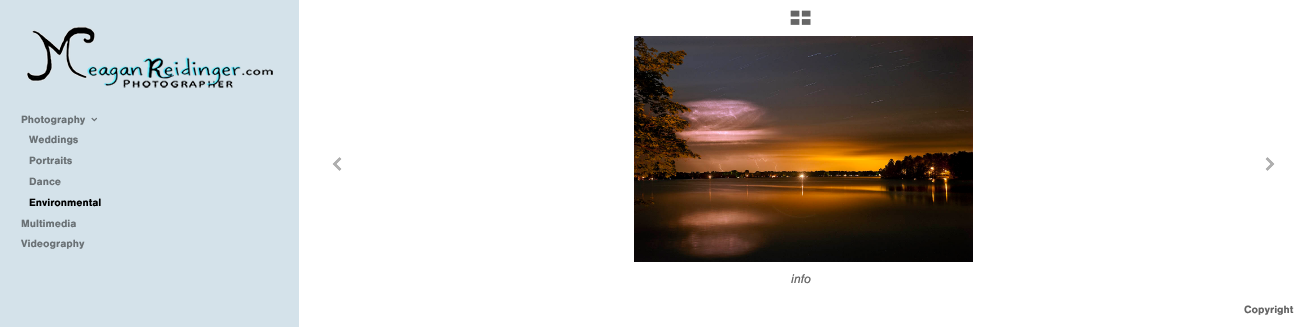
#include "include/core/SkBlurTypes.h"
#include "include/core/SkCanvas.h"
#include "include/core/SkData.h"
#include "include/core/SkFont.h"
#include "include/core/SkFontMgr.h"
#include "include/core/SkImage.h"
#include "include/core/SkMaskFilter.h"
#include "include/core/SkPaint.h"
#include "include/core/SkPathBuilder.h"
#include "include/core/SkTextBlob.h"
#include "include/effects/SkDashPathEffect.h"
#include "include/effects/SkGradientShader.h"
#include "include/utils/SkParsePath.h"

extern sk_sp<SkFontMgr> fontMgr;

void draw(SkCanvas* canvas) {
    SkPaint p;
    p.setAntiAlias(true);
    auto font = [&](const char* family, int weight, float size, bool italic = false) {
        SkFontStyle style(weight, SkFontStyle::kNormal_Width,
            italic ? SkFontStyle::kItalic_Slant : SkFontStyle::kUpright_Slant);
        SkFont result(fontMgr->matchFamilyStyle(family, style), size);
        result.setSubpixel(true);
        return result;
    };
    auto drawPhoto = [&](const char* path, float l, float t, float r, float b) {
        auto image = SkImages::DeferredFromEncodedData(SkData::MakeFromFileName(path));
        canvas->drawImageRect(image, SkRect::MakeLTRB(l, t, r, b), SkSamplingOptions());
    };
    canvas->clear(0xFFFFFFFF);
    drawPhoto("media/1.png", 790, 10, 811, 25);
    p.setColor(0xFFD4E2EA);
    canvas->drawRect(SkRect::MakeLTRB(0, 0, 299, 327), p);
    drawPhoto("media/2.png", 26, 26, 273, 88);
    auto font1 = font("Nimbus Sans", 700, 11);
    p.setColor(0xFF6A7175);
    canvas->drawString("Photography", 21, 123, font1, p);
    drawPhoto("media/3.png", 91, 117, 97, 122);
    {
        const struct { const char* s; float x, y; } items[] = {
            {"Weddings", 29, 143},
            {"Portraits", 29, 164},
            {"Dance", 29, 185},
        };
        for (auto [s, x, y] : items) {
            canvas->drawString(s, x, y, font1, p);
        }
    }
    p.setColor(0xFF000000);
    canvas->drawString("Environmental", 29, 206, font1, p);
    p.setColor(0xFF6A7175);
    canvas->drawString("Multimedia", 21, 227, font1, p);
    canvas->drawString("Videography", 21, 247, font1, p);
    drawPhoto("media/4.png", 332, 157, 342, 171);
    drawPhoto("media/5.png", 634, 36, 973, 262);
    drawPhoto("media/6.png", 1265, 157, 1275, 171);
    auto font2 = font("Nimbus Sans", 400, 13, true);
    p.setColor(0xFF646464);
    canvas->drawString("info", 791, 283, font2, p);
    canvas->drawString("Copyright", 1244, 313, font1, p);
}
